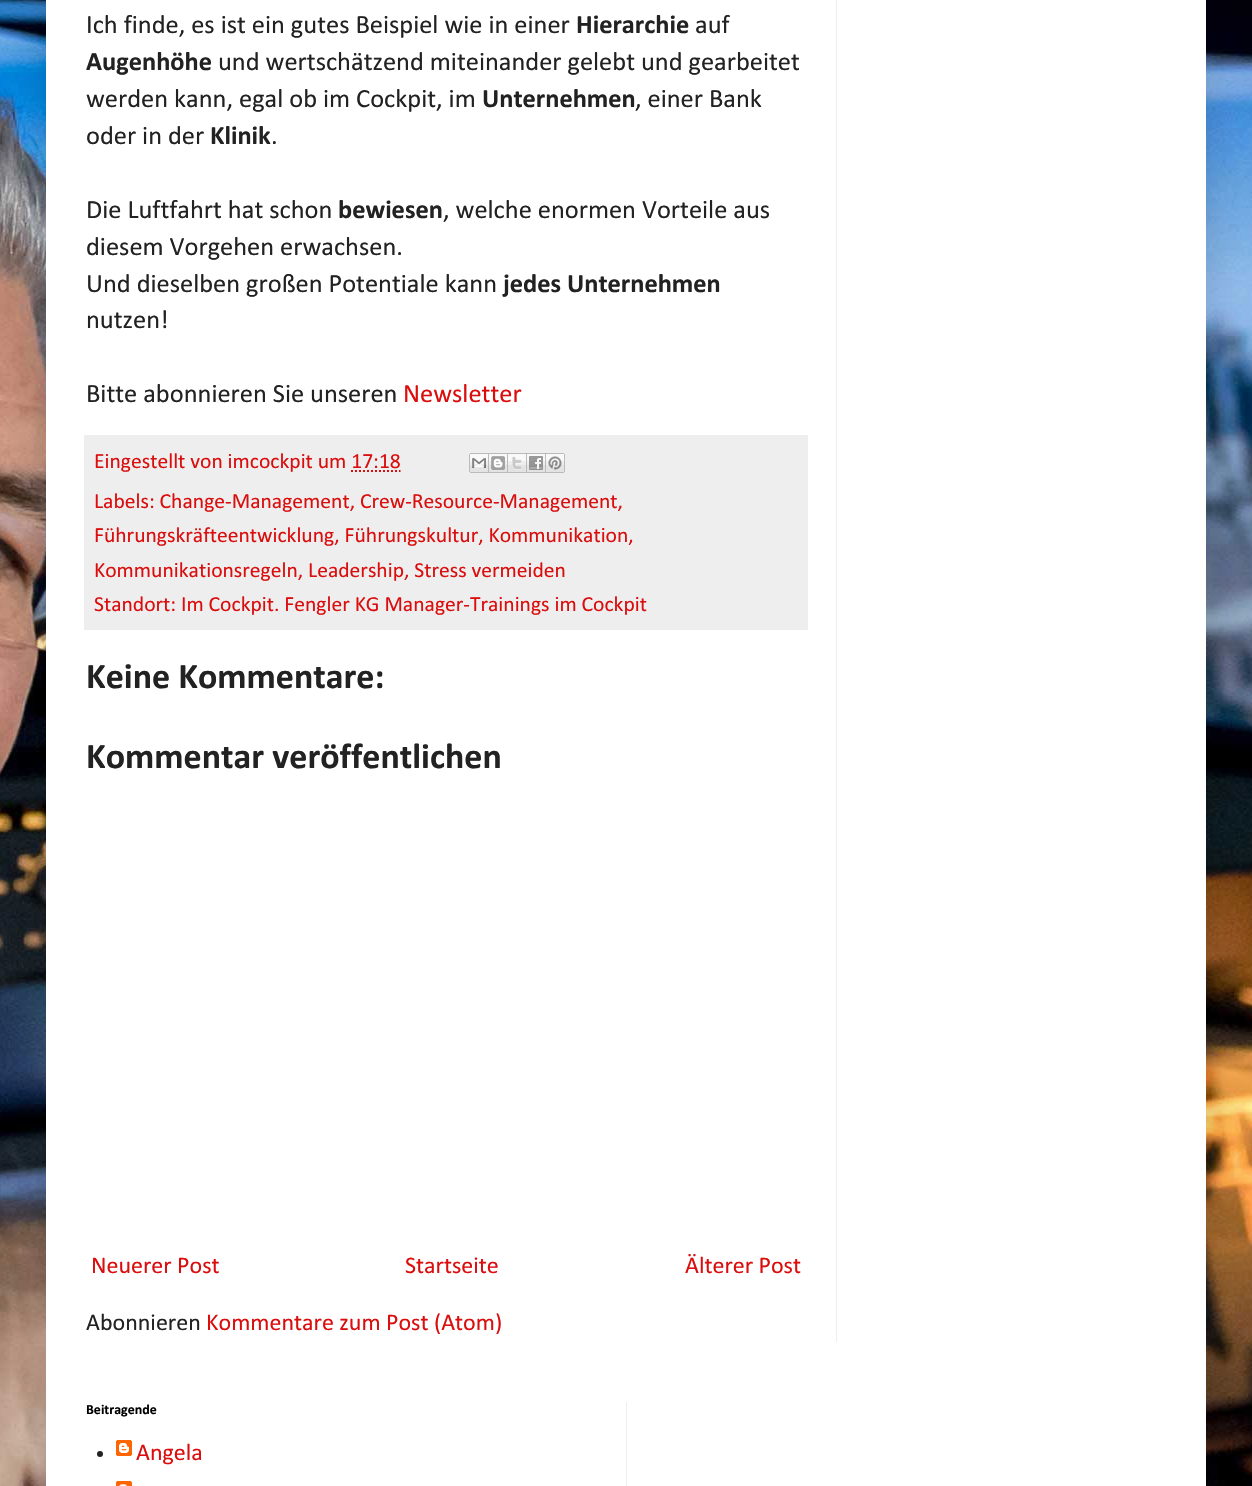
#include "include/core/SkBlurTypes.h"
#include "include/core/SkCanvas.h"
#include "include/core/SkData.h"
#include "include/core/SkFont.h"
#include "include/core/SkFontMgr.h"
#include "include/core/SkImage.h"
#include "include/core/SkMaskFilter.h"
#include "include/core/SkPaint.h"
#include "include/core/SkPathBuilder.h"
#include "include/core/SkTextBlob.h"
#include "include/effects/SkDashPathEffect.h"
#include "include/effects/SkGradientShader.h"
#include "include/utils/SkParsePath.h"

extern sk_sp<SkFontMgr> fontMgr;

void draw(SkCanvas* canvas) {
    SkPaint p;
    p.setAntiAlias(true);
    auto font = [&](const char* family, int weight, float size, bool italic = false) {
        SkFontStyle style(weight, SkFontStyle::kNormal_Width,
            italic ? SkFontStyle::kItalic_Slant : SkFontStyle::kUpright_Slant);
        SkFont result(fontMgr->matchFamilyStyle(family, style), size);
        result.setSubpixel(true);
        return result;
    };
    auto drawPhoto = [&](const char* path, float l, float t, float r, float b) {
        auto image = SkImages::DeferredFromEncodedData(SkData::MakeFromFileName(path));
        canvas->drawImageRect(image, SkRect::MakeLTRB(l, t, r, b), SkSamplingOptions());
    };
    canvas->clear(0xFFFFFFFF);
    drawPhoto("media/1.png", 0, 0, 1252, 1486);
    p.setColor(0x26000000);
    p.setMaskFilter(SkMaskFilter::MakeBlur(kNormal_SkBlurStyle, 20));
    canvas->drawRect(SkRect::MakeLTRB(46, -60, 1206, 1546), p);
    p.setMaskFilter(nullptr);
    p.setColor(0xFFFFFFFF);
    canvas->drawRect(SkRect::MakeLTRB(46, 0, 1206, 1486), p);
    auto font1 = font("Calibri", 400, 26.4f);
    p.setColor(0xFF222222);
    canvas->drawString("Ich finde, es ist ein gutes Beispiel wie in einer", 86, 33, font1, p);
    auto font2 = font("Calibri", 700, 26.4f);
    canvas->drawString("Hierarchie", 576, 33, font2, p);
    canvas->drawString("auf", 695, 33, font1, p);
    canvas->drawString("Augenhöhe", 86, 70, font2, p);
    canvas->drawString("und wertschätzend miteinander gelebt und gearbeitet", 218, 70, font1, p);
    canvas->drawString("werden kann, egal ob im Cockpit, im", 86, 107, font1, p);
    canvas->drawString("Unternehmen", 482, 107, font2, p);
    canvas->drawString(", einer Bank", 635, 107, font1, p);
    canvas->drawString("oder in der", 86, 144, font1, p);
    canvas->drawString("Klinik", 210, 144, font2, p);
    canvas->drawString(".", 271, 144, font1, p);
    canvas->drawString("Die Luftfahrt hat schon", 86, 218, font1, p);
    canvas->drawString("bewiesen", 338, 218, font2, p);
    {
        const struct { const char* s; float x, y; } items[] = {
            {", welche enormen Vorteile aus", 443, 218},
            {"diesem Vorgehen erwachsen.", 86, 255},
            {"Und dieselben großen Potentiale kann", 86, 292},
        };
        for (auto [s, x, y] : items) {
            canvas->drawString(s, x, y, font1, p);
        }
    }
    canvas->drawString("jedes Unternehmen", 503, 292, font2, p);
    canvas->drawString("nutzen!", 86, 328, font1, p);
    canvas->drawString("Bitte abonnieren Sie unseren", 86, 402, font1, p);
    p.setColor(0xFFDB0E0E);
    canvas->drawString("Newsletter", 403, 402, font1, p);
    p.setColor(0xFFEEEEEE);
    canvas->drawRect(SkRect::MakeLTRB(84, 435, 808, 630), p);
    auto font3 = font("Calibri", 400, 21.6f);
    p.setColor(0xFFDB0E0E);
    canvas->drawString("Eingestellt von imcockpit um 17:18", 94, 468, font3, p);
    drawPhoto("media/2.png", 469, 453, 489, 473);
    drawPhoto("media/3.png", 489, 453, 508, 473);
    drawPhoto("media/4.png", 508, 453, 527, 473);
    drawPhoto("media/5.png", 527, 453, 546, 473);
    drawPhoto("media/6.png", 546, 453, 565, 473);
    p.setStyle(SkPaint::kStroke_Style);
    p.setStrokeWidth(2);
    p.setPathEffect(SkDashPathEffect::Make({{2, 2}}, 0));
    canvas->drawPath(SkPathBuilder().moveTo(351, 471).lineTo(400.5f, 471).detach(), p);
    p.setPathEffect(nullptr);
    p.setStyle(SkPaint::kFill_Style);
    {
        const struct { const char* s; float x, y; } items[] = {
            {"Labels: Change-Management, Crew-Resource-Management,", 94, 508},
            {"Führungskräfteentwicklung, Führungskultur, Kommunikation,", 94, 542},
            {"Kommunikationsregeln, Leadership, Stress vermeiden", 94, 577},
            {"Standort: Im Cockpit. Fengler KG Manager-Trainings im Cockpit", 94, 611},
        };
        for (auto [s, x, y] : items) {
            canvas->drawString(s, x, y, font3, p);
        }
    }
    auto font4 = font("Calibri", 700, 36);
    p.setColor(0xFF222222);
    canvas->drawString("Keine Kommentare:", 86, 688, font4, p);
    canvas->drawString("Kommentar veröffentlichen", 86, 768, font4, p);
    auto font5 = font("Calibri", 400, 24);
    p.setColor(0xFFDB0E0E);
    {
        const struct { const char* s; float x, y; } items[] = {
            {"Neuerer Post", 91, 1273},
            {"Startseite", 405, 1273},
            {"Älterer Post", 685, 1273},
        };
        for (auto [s, x, y] : items) {
            canvas->drawString(s, x, y, font5, p);
        }
    }
    p.setColor(0xFF222222);
    canvas->drawString("Abonnieren", 86, 1330, font5, p);
    p.setColor(0xFFDB0E0E);
    canvas->drawString("Kommentare zum Post (Atom)", 206, 1330, font5, p);
    p.setColor(0xFFEEEEEE);
    canvas->drawRect(SkRect::MakeLTRB(836, 0, 837, 1342), p);
    auto font6 = font("Calibri", 700, 14);
    p.setColor(0xFF000000);
    canvas->drawString("Beitragende", 86, 1414, font6, p);
    p.setColor(0xFF222222);
    canvas->drawCircle(100, 1454, 3, p);
    drawPhoto("media/7.png", 116, 1440, 132, 1456);
    p.setColor(0xFFDB0E0E);
    canvas->drawString("Angela", 136, 1460, font5, p);
    drawPhoto("media/8.png", 116, 1481, 132, 1486);
    p.setColor(0xFFEEEEEE);
    canvas->drawRect(SkRect::MakeLTRB(626, 1402, 627, 1486), p);
}
